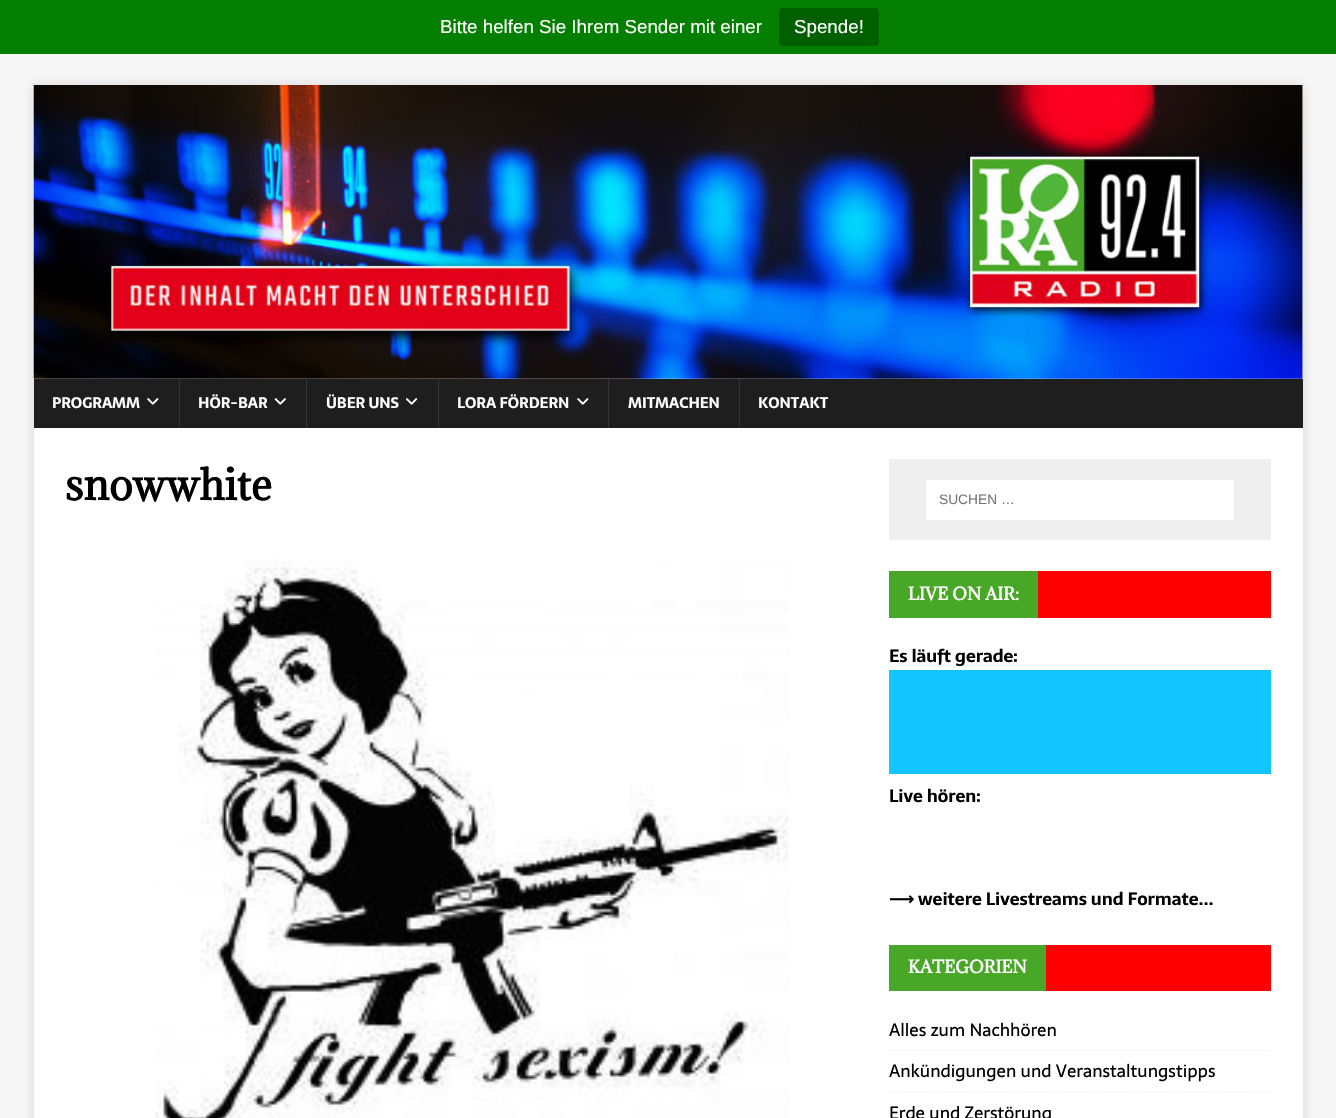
void draw(SkCanvas* canvas) {
  SkPaint paint;
  paint.setAntiAlias(true);
  auto face = [&](const char* family, int weight, float size, bool italic = false) {
    SkFontStyle style(weight, SkFontStyle::kNormal_Width,
      italic ? SkFontStyle::kItalic_Slant : SkFontStyle::kUpright_Slant);
    SkFont result(fontMgr->matchFamilyStyle(family, style), size);
    result.setSubpixel(true);
    return result;
  };
  auto paste = [&](const char* path, float x, float y, float w, float h) {
    auto image = SkImages::DeferredFromEncodedData(SkData::MakeFromFileName(path));
    canvas->drawImageRect(image, SkRect::MakeXYWH(x, y, w, h), SkSamplingOptions());
  };
  auto shape = [&](const char* data, bool evenOdd = false) {
    SkPath result = *SkParsePath::FromSVGString(data);
    if (evenOdd) result.setFillType(SkPathFillType::kEvenOdd);
    return result;
  };
  canvas->clear(0xfff7f7f7);
  paint.setColor(0xff057f01);
  canvas->drawRect(SkRect::MakeXYWH(0, 0, 1336, 54), paint);
  paint.setColor(0xff006000);
  canvas->drawRoundRect(SkRect::MakeXYWH(779, 8, 100, 38), 4, 4, paint);
  paint.setColor(0x2b323232);
  paint.setMaskFilter(SkMaskFilter::MakeBlur(kNormal_SkBlurStyle, 6));
  canvas->drawRect(SkRect::MakeXYWH(34, 85, 1269, 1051), paint);
  paint.setMaskFilter(nullptr);
  paint.setColor(0xffffffff);
  canvas->drawRect(SkRect::MakeXYWH(34, 85, 1269, 294), paint);
  paste("img/1.png", 33, 85, 1270, 294);
  paint.setColor(0xff1f1e1e);
  canvas->drawRect(SkRect::MakeXYWH(34, 379, 1269, 49), paint);
  paste("img/2.png", 147, 398, 12, 7);
  paint.setColor(0xff353535);
  canvas->drawRect(SkRect::MakeXYWH(179, 379, 1, 49), paint);
  paste("img/3.png", 274, 398, 12, 7);
  canvas->drawRect(SkRect::MakeXYWH(306, 379, 1, 49), paint);
  paste("img/4.png", 406, 398, 12, 7);
  canvas->drawRect(SkRect::MakeXYWH(438, 379, 1, 49), paint);
  paste("img/2.png", 577, 398, 12, 7);
  {
    const struct { float x, y, w, h; SkColor color; } items[] = {
      {608, 379, 1, 49, 0xff353535},
      {739, 379, 1, 49, 0xff353535},
      {34, 428, 1269, 690, 0xffffffff},
    };
    for (auto [x, y, w, h, color] : items) {
      paint.setColor(color);
      canvas->drawRect(SkRect::MakeXYWH(x, y, w, h), paint);
    }
  }
  paste("img/5.png", 155, 559, 634, 559);
  paint.setColor(0xffefefef);
  canvas->drawRect(SkRect::MakeXYWH(889, 459, 382, 81), paint);
  paint.setColor(0xffffffff);
  canvas->drawRect(SkRect::MakeXYWH(925.5f, 479.5f, 309, 41), paint);
  paint.setStroke(true);
  paint.setStrokeWidth(1);
  paint.setColor(0xffebebeb);
  canvas->drawRect(SkRect::MakeXYWH(925.5f, 479.5f, 309, 41), paint);
  paint.setStroke(false);
  {
    const struct { float x, y, w, h; SkColor color; } items[] = {
      {1038, 571, 233, 47, 0xffff0000},
      {889, 571, 149, 47, 0xff48a727},
      {889, 670, 382, 104, 0xff12c4ff},
      {1046, 945, 225, 46, 0xffff0000},
      {889, 945, 157, 46, 0xff48a727},
    };
    for (auto [x, y, w, h, color] : items) {
      paint.setColor(color);
      canvas->drawRect(SkRect::MakeXYWH(x, y, w, h), paint);
    }
  }
  paint.setStroke(true);
  paint.setStrokeWidth(1.2f);
  paint.setColor(0xffebebeb);
  paint.setPathEffect(SkDashPathEffect::Make({{1.25f, 1.25f}}, 0));
  canvas->drawPath(shape("M889 1050.5H1271"), paint);
  paint.setPathEffect(nullptr);
  paint.setPathEffect(SkDashPathEffect::Make({{1.25f, 1.25f}}, 0));
  canvas->drawPath(shape("M889 1092H1271"), paint);
  paint.setPathEffect(nullptr);
  auto f0 = face("Liberation Sans", 400, 18.75f);
  paint.setStroke(false);
  paint.setColor(0xffffffff);
  canvas->drawString("Bitte helfen Sie Ihrem Sender mit einer", 440, 33, f0, paint);
  canvas->drawString("Spende!", 794, 33, f0, paint);
  auto f1 = face("Sarala", 700, 15);
  {
    const struct { const char* s; float x, y; } items[] = {
      {"PROGRAMM", 52, 408},
      {"HÖR-BAR", 198, 408},
      {"ÜBER UNS", 326, 408},
      {"LORA FÖRDERN", 457, 408},
      {"MITMACHEN", 628, 408},
      {"KONTAKT", 758, 408},
    };
    for (auto [s, x, y] : items) {
      canvas->drawString(s, x, y, f1, paint);
    }
  }
  auto f2 = face("Adamina", 700, 40);
  paint.setColor(0xff000000);
  canvas->drawString("snowwhite", 65, 500, f2, paint);
  auto f3 = face("Liberation Sans", 400, 13.75f);
  paint.setColor(0xff757575);
  canvas->drawString("SUCHEN …", 939, 504, f3, paint);
  auto f4 = face("Adamina", 700, 16.25f);
  paint.setColor(0xffffffff);
  canvas->drawString("LIVE ON AIR:", 908, 600, f4, paint);
  auto f5 = face("Sarala", 700, 17.5f);
  paint.setColor(0xff000000);
  canvas->drawString("Es läuft gerade:", 889, 662, f5, paint);
  canvas->drawString("Live hören:", 889, 802, f5, paint);
  auto f6 = face("DejaVu Sans", 700, 17.5f);
  canvas->drawString("⟶", 889, 905, f6, paint);
  canvas->drawString("weitere Livestreams und Formate...", 918, 905, f5, paint);
  paint.setColor(0xffffffff);
  canvas->drawString("KATEGORIEN", 908, 973, f4, paint);
  auto f7 = face("Sarala", 400, 17.5f);
  paint.setColor(0xff000000);
  {
    const struct { const char* s; float x, y; } items[] = {
      {"Alles zum Nachhören", 889, 1036},
      {"Ankündigungen und Veranstaltungstipps", 889, 1077},
      {"Erde und Zerstörung", 889, 1119},
    };
    for (auto [s, x, y] : items) {
      canvas->drawString(s, x, y, f7, paint);
    }
  }
}
